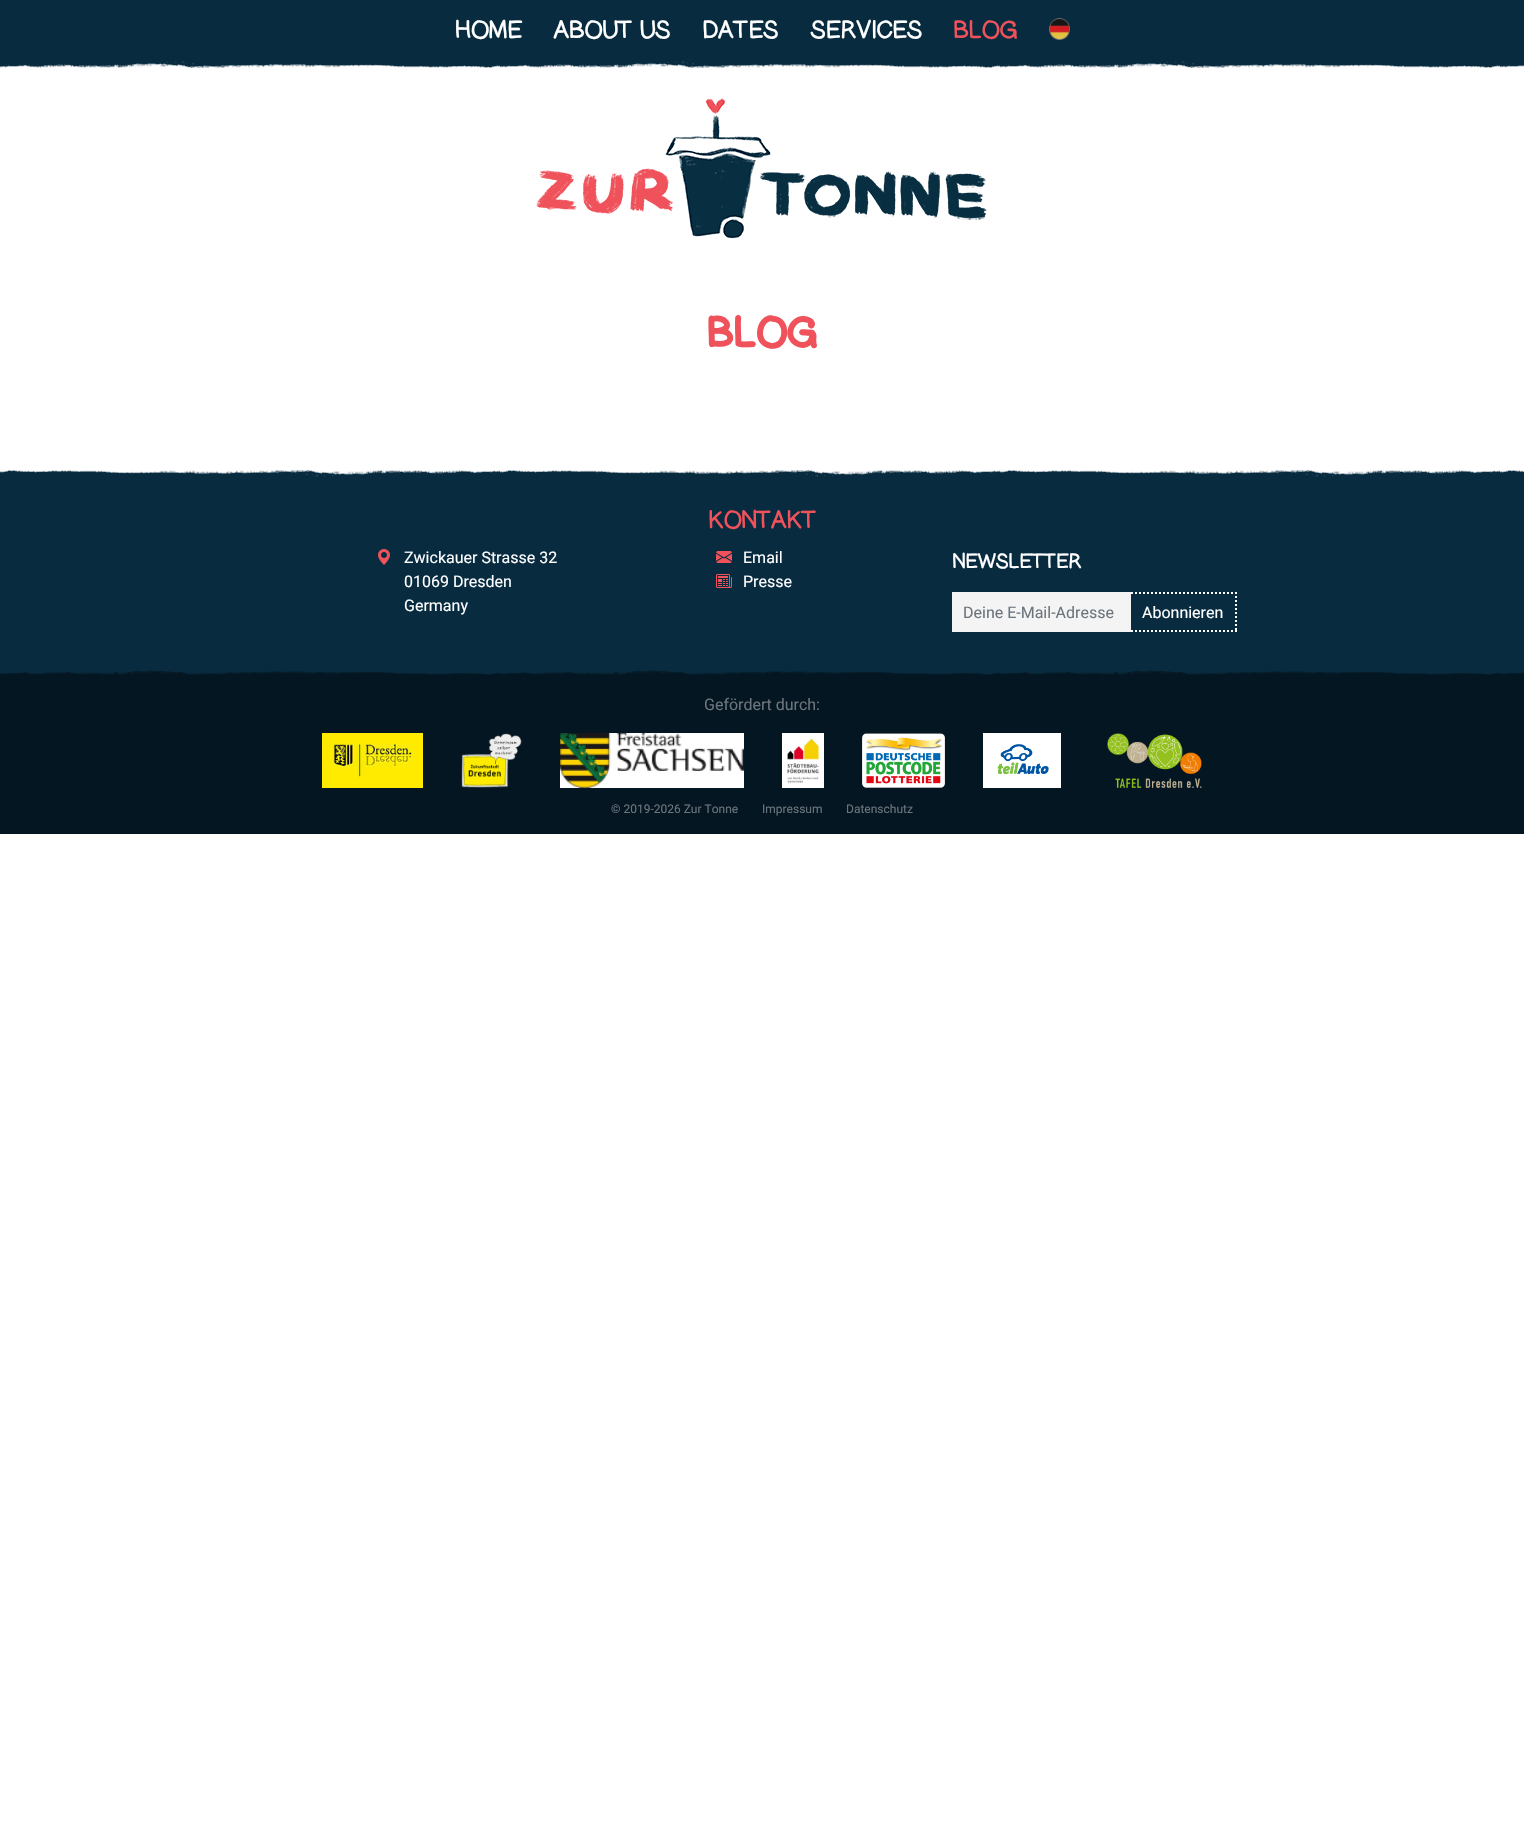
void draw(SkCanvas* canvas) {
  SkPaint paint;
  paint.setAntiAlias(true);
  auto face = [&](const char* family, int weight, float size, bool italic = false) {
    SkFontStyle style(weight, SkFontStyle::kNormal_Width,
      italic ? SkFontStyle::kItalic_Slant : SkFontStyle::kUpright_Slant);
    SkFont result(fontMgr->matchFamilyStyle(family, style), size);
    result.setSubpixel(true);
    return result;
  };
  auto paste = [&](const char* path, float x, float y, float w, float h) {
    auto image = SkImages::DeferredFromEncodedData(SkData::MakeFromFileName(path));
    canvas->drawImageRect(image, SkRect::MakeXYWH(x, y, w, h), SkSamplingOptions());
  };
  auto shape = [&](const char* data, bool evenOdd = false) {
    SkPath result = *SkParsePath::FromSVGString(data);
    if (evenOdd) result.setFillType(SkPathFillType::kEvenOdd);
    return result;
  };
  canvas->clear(0xffffffff);
  paint.setColor(0xff082b3f);
  canvas->drawRect(SkRect::MakeXYWH(0, 0, 1524, 60), paint);
  paste("img/1.png", 1049, 18, 21, 22);
  paste("img/2.png", 0, 60, 1524, 8);
  paste("img/3.png", 536, 98, 451, 141);
  paste("img/4.png", 0, 470, 1524, 8);
  canvas->drawRect(SkRect::MakeXYWH(0, 478, 1524, 189), paint);
  paste("img/5.png", 378, 549, 12, 16);
  paste("img/6.png", 716, 551, 16, 12);
  paste("img/7.png", 716, 574, 16, 14);
  paint.setColor(0xfff4f4f4);
  canvas->drawRect(SkRect::MakeXYWH(952, 592, 179, 40), paint);
  paint.setStroke(true);
  paint.setStrokeWidth(2);
  paint.setColor(0xffffffff);
  paint.setPathEffect(SkDashPathEffect::Make({{2, 2}}, 0));
  canvas->drawPath(shape("M1131 593H1237"), paint);
  paint.setPathEffect(nullptr);
  paint.setPathEffect(SkDashPathEffect::Make({{2, 2}}, 0));
  canvas->drawPath(shape("M1236 592V632"), paint);
  paint.setPathEffect(nullptr);
  paint.setPathEffect(SkDashPathEffect::Make({{2, 2}}, 0));
  canvas->drawPath(shape("M1131 631H1237"), paint);
  paint.setPathEffect(nullptr);
  paint.setStroke(false);
  paint.setColor(0xff041621);
  canvas->drawRect(SkRect::MakeXYWH(0, 668, 1524, 166), paint);
  paste("img/8.png", 0, 667, 1524, 8);
  paste("img/9.png", 322, 733, 101, 55);
  paste("img/10.png", 461, 733, 61, 55);
  paste("img/11.png", 560, 733, 184, 55);
  paste("img/12.png", 782, 733, 42, 55);
  paste("img/13.png", 862, 733, 83, 55);
  paste("img/14.png", 983, 733, 78, 55);
  paste("img/15.png", 1107, 733, 95, 55);
  auto f0 = face("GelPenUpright", 500, 24);
  paint.setColor(0xffffffff);
  {
    const struct { const char* s; float x, y; } items[] = {
      {"HOME", 454, 38},
      {"ABOUT US", 553, 38},
      {"DATES", 702, 38},
      {"SERVICES", 810, 38},
    };
    for (auto [s, x, y] : items) {
      canvas->drawString(s, x, y, f0, paint);
    }
  }
  paint.setColor(0xffef525b);
  canvas->drawString("BLOG", 953, 38, f0, paint);
  auto f1 = face("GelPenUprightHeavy", 900, 40);
  canvas->drawString("BLOG", 707, 346, f1, paint);
  canvas->drawString("KONTAKT", 708, 528, f0, paint);
  auto f2 = face("Roboto", 400, 16);
  paint.setColor(0xffffffff);
  {
    const struct { const char* s; float x, y; } items[] = {
      {"Zwickauer Strasse 32", 404, 563},
      {"01069 Dresden", 404, 587},
      {"Germany", 404, 611},
      {"Email", 743, 563},
      {"Presse", 743, 587},
    };
    for (auto [s, x, y] : items) {
      canvas->drawString(s, x, y, f2, paint);
    }
  }
  auto f3 = face("GelPenUpright", 500, 20);
  canvas->drawString("NEWSLETTER", 952, 568, f3, paint);
  paint.setColor(0xff6c757d);
  canvas->drawString("Deine E-Mail-Adresse", 963, 618, f2, paint);
  paint.setColor(0xffffffff);
  canvas->drawString("Abonnieren", 1142, 618, f2, paint);
  paint.setColor(0xff6c757d);
  canvas->drawString("Gefördert durch:", 704, 710, f2, paint);
  auto f4 = face("Roboto", 400, 12);
  {
    const struct { const char* s; float x, y; } items[] = {
      {"© 2019-2026 Zur Tonne", 611, 813},
      {"Impressum", 762, 813},
      {"Datenschutz", 846, 813},
    };
    for (auto [s, x, y] : items) {
      canvas->drawString(s, x, y, f4, paint);
    }
  }
}
